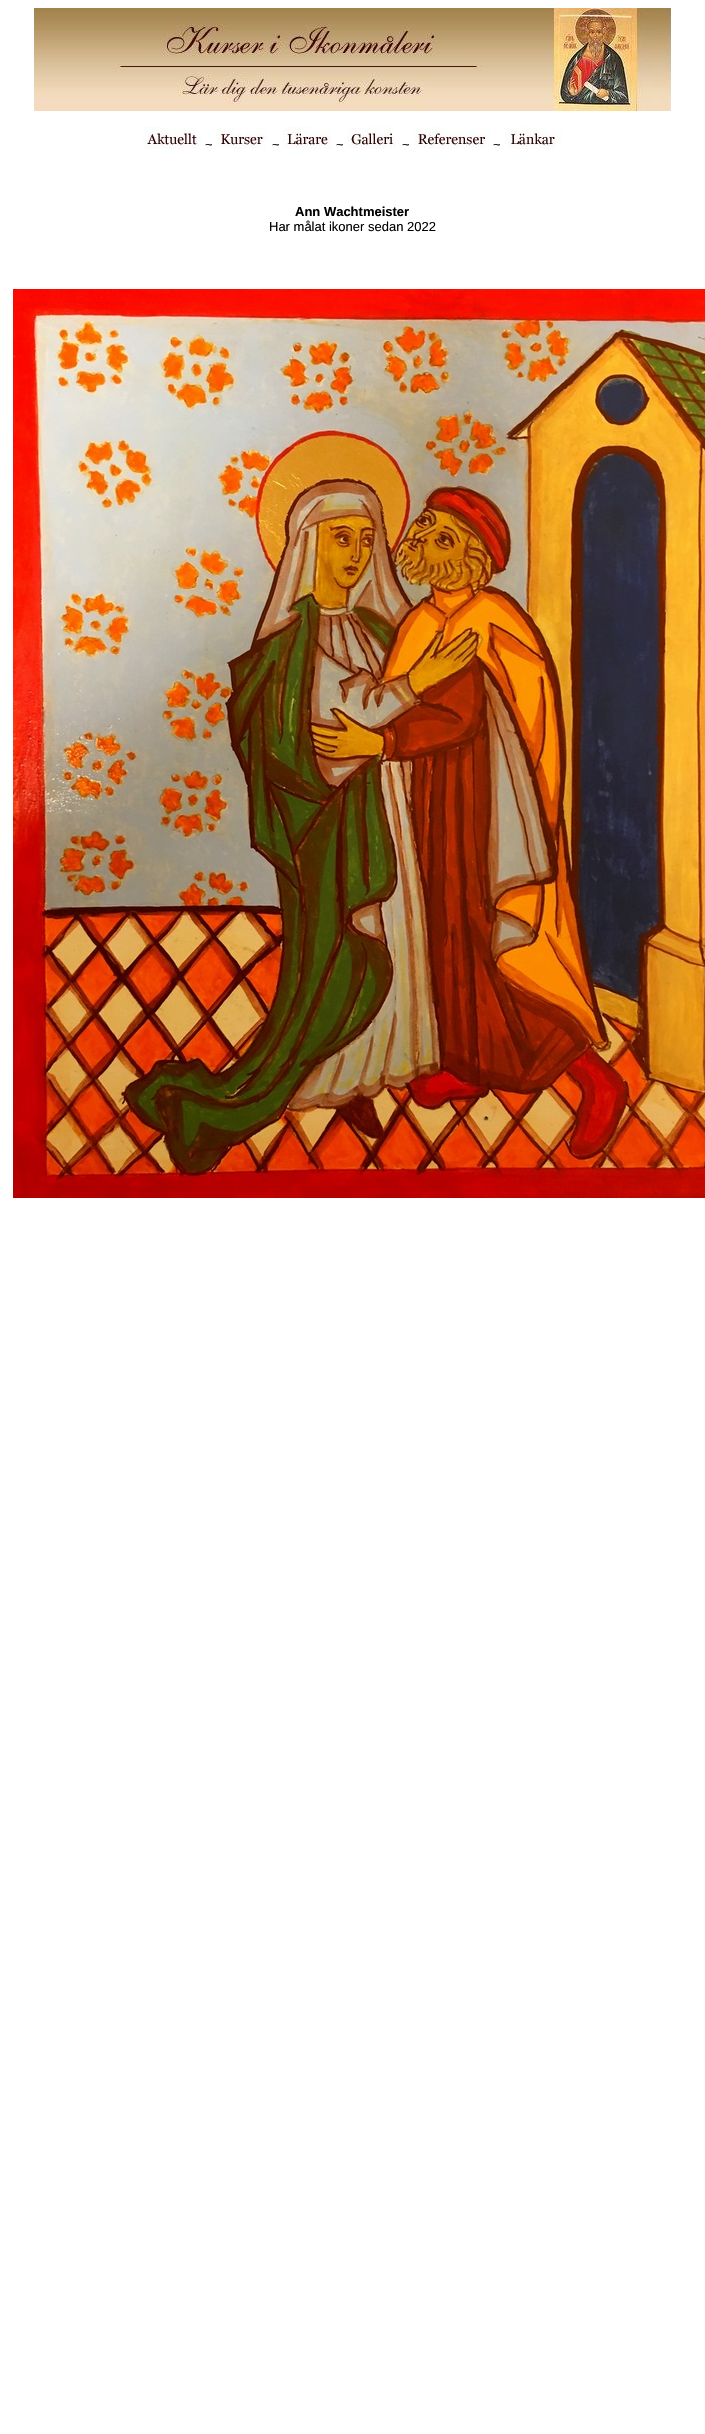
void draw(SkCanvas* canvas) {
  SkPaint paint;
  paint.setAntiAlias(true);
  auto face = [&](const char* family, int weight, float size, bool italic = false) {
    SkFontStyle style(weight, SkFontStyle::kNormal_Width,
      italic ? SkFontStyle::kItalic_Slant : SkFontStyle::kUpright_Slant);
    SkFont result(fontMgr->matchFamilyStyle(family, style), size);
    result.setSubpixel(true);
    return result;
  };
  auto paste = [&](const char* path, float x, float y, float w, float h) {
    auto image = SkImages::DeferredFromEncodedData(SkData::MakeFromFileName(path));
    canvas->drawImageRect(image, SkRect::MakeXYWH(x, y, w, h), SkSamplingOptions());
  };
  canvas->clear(0xffffffff);
  paste("img/1.png", 34, 8, 637, 103);
  paste("img/2.png", 143, 127, 58, 22);
  paste("img/3.png", 216, 127, 52, 22);
  paste("img/4.png", 283, 127, 49, 22);
  paste("img/5.png", 347, 127, 48, 22);
  paste("img/6.png", 413, 127, 77, 22);
  paste("img/7.png", 505, 127, 57, 22);
  paste("img/8.png", 13, 289, 692, 909);
  auto f0 = face("Liberation Sans", 400, 13);
  paint.setColor(0xff000000);
  {
    const struct { const char* s; float x, y; } items[] = {
      {"~", 205, 149},
      {"~", 272, 149},
      {"~", 336, 149},
      {"~", 402, 149},
      {"~", 493, 149},
    };
    for (auto [s, x, y] : items) {
      canvas->drawString(s, x, y, f0, paint);
    }
  }
  auto f1 = face("Liberation Sans", 700, 13);
  canvas->drawString("Ann Wachtmeister", 295, 216, f1, paint);
  canvas->drawString("Har målat ikoner sedan 2022", 269, 231, f0, paint);
}
